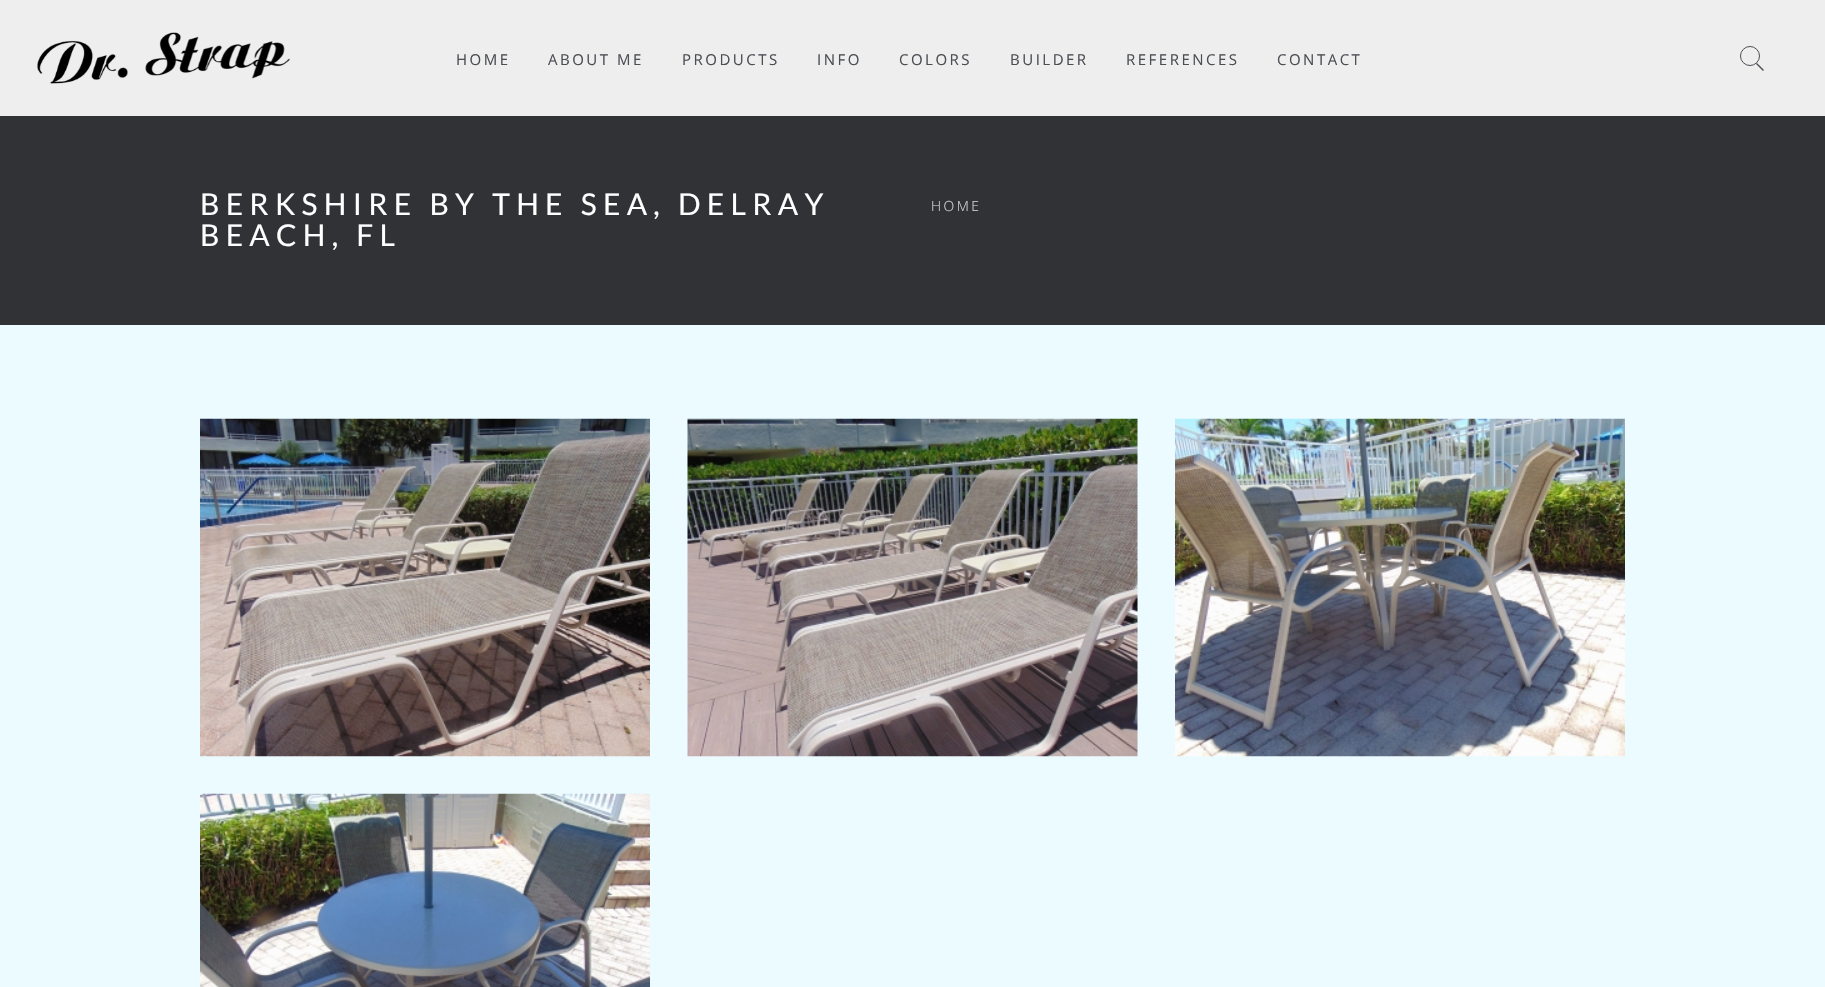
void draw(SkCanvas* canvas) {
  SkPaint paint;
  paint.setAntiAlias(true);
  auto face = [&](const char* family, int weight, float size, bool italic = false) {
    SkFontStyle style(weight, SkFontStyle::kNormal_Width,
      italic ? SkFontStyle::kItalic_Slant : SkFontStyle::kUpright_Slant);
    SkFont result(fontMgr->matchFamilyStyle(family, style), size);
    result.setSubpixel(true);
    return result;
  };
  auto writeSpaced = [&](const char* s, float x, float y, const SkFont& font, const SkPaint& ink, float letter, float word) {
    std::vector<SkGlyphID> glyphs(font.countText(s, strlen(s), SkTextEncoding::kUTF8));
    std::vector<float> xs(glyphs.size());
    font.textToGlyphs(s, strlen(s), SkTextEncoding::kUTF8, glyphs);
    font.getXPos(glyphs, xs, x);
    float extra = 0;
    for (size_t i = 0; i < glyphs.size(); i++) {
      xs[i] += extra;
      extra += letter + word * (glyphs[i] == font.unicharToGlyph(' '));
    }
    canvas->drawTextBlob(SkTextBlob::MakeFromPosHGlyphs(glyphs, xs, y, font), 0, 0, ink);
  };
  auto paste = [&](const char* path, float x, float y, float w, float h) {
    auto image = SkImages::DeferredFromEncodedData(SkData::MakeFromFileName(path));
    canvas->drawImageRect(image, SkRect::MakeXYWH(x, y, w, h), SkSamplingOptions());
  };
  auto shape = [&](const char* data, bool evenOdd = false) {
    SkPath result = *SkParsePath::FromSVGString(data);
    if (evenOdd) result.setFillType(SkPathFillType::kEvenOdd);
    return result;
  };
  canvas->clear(0xff303236);
  paint.setColor(0xffeeeeee);
  canvas->drawRect(SkRect::MakeXYWH(0, 0, 1825, 116), paint);
  paste("img/1.png", 37, 32, 254, 52);
  paint.setStroke(true);
  paint.setStrokeWidth(1);
  paint.setColor(0xff4b4e53);
  canvas->drawCircle(1750, 56, 9.5f, paint);
  paint.setStroke(false);
  canvas->drawPath(shape("M1757 63L1764 70L1763 71L1756 64Z"), paint);
  paint.setColor(0xffebfbff);
  canvas->drawRect(SkRect::MakeXYWH(0, 325, 1825, 662), paint);
  paste("img/2.png", 200, 418, 450, 339);
  paste("img/3.png", 687, 418, 451, 339);
  paste("img/4.png", 1175, 418, 450, 339);
  paste("img/5.png", 200, 793, 450, 194);
  auto f0 = face("Open Sans", 400, 15);
  paint.setColor(0xff4b4e53);
  {
    const struct { const char* s; float x, y; } items[] = {
      {"HOME", 456, 65},
      {"ABOUT ME", 548, 65},
      {"PRODUCTS", 682, 65},
      {"INFO", 817, 65},
      {"COLORS", 899, 65},
      {"BUILDER", 1010, 65},
      {"REFERENCES", 1126, 65},
      {"CONTACT", 1277, 65},
    };
    for (auto [s, x, y] : items) {
      writeSpaced(s, x, y, f0, paint, 2.5f, 0);
    }
  }
  auto f1 = face("Lato", 400, 30);
  paint.setColor(0xffffffff);
  writeSpaced("BERKSHIRE BY THE SEA, DELRAY", 200, 215, f1, paint, 6.25f, 0);
  writeSpaced("BEACH, FL", 200, 246, f1, paint, 6.25f, 0);
  auto f2 = face("Open Sans", 300, 14);
  paint.setColor(0xffd6d6d7);
  writeSpaced("HOME", 931, 211, f2, paint, 2.5f, 0);
}
